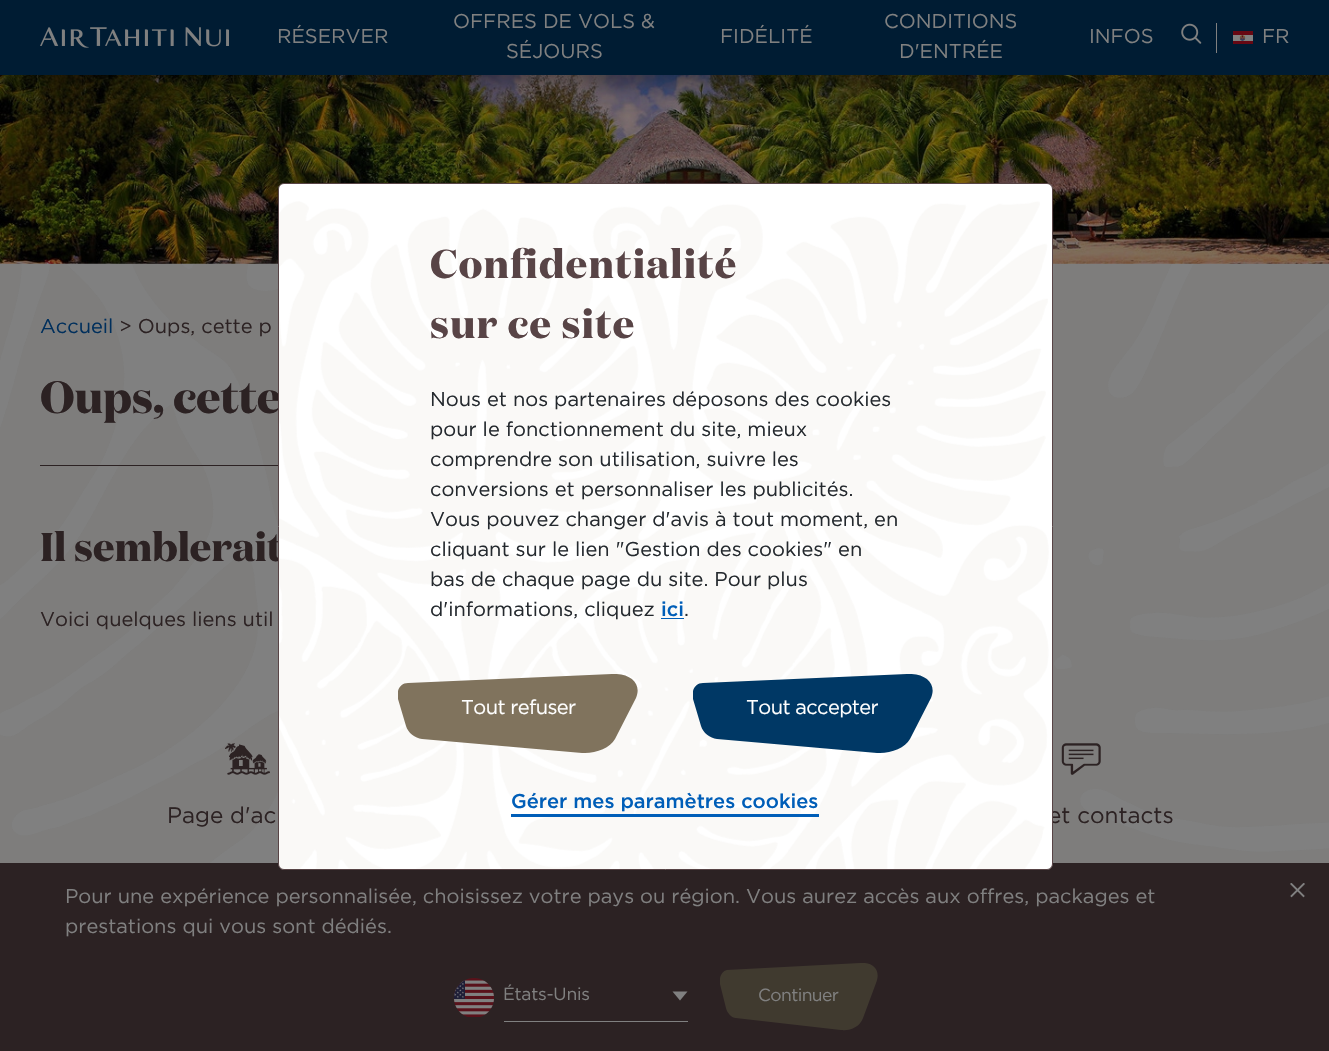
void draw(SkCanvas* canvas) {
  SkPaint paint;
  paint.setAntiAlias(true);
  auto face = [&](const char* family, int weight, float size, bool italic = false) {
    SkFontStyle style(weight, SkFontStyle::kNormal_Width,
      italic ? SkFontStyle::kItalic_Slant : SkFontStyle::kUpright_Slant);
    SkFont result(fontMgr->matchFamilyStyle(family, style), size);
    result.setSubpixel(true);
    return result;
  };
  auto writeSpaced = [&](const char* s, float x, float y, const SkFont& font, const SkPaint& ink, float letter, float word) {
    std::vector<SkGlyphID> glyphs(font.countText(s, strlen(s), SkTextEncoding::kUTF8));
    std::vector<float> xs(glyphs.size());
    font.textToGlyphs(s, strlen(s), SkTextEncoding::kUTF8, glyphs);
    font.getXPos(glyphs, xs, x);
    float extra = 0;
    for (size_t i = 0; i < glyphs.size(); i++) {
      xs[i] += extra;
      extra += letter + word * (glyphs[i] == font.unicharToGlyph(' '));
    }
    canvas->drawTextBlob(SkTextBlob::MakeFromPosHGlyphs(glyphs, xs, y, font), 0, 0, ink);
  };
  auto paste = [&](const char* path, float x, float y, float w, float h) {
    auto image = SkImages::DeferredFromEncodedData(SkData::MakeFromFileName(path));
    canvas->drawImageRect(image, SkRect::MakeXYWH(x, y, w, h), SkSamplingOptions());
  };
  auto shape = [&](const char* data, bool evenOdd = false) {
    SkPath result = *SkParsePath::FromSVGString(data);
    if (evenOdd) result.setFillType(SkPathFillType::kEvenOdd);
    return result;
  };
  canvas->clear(0xff808080);
  paste("img/10.png", 0, 263, 1329, 600);
  paste("img/4.png", 0, 75, 1329, 189);
  paint.setColor(0x59000000);
  paint.setMaskFilter(SkMaskFilter::MakeBlur(kNormal_SkBlurStyle, 10));
  canvas->drawRect(SkRect::MakeXYWH(0, 10, 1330, 75), paint);
  paint.setMaskFilter(nullptr);
  paint.setColor(0xff001c33);
  canvas->drawRect(SkRect::MakeXYWH(0, 0, 1329, 75), paint);
  paste("img/1.png", 40, 27, 189, 21);
  paste("img/2.png", 1181, 23, 21, 21);
  paint.setColor(0xff808080);
  canvas->drawRect(SkRect::MakeXYWH(1216, 23, 1, 30), paint);
  paste("img/3.png", 1233, 31, 20, 13);
  paint.setColor(0xff2c2223);
  canvas->drawRect(SkRect::MakeXYWH(40, 465, 238, 1), paint);
  paste("img/5.png", 225, 743, 45, 32);
  paste("img/6.png", 1061, 743, 40, 32);
  canvas->drawRect(SkRect::MakeXYWH(0, 863, 1329, 188), paint);
  paste("img/7.png", 1290, 883, 15, 15);
  paste("img/8.png", 454, 978, 40, 39);
  paint.setColor(0xff808080);
  canvas->drawRect(SkRect::MakeXYWH(504, 1021, 184, 1), paint);
  canvas->drawPath(shape("M680 1000.5L672.5 991.5H687.5Z"), paint);
  canvas->save();
  canvas->clipRect(SkRect::MakeXYWH(720, 963, 158, 68));
  paint.setColor(0xff403a2f);
  canvas->drawPath(shape("M727 970L861 963C874 962 881 971 876 983L863 1018C860 1027 850 1031 841 1030L736 1018C732 1018 727 1013 726 1008L720 984C719 977 722 971 727 970Z", true), paint);
  canvas->restore();
  auto f0 = face("Gotham", 400, 20);
  paint.setColor(0xff808080);
  {
    const struct { const char* s; float x, y; } items[] = {
      {"RÉSERVER", 277, 43},
      {"OFFRES DE VOLS &", 453, 28},
      {"SÉJOURS", 506, 58},
      {"FIDÉLITÉ", 720, 43},
      {"CONDITIONS", 884, 28},
      {"D'ENTRÉE", 899, 58},
      {"INFOS", 1089, 43},
      {"FR", 1262, 43},
    };
    for (auto [s, x, y] : items) {
      canvas->drawString(s, x, y, f0, paint);
    }
  }
  paint.setColor(0xff002f5c);
  canvas->drawString("Accueil", 40, 333, f0, paint);
  paint.setColor(0xff2c2223);
  canvas->drawString("> Oups, cette p", 119, 333, f0, paint);
  auto f1 = face("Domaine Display", 700, 45);
  canvas->drawString("Oups, cette", 40, 413, f1, paint);
  auto f2 = face("Domaine Display", 700, 40);
  canvas->drawString("Il semblerait", 40, 561, f2, paint);
  canvas->drawString("Voici quelques liens util", 40, 626, f0, paint);
  auto f3 = face("Gotham", 400, 22.5f);
  canvas->drawString("Page d'ac", 167, 823, f3, paint);
  canvas->drawString("et contacts", 1048, 823, f3, paint);
  paint.setColor(0xff808080);
  canvas->drawString("Pour une expérience personnalisée, choisissez votre pays ou région. Vous aurez accès aux offres, packages et", 65, 903, f0, paint);
  canvas->drawString("prestations qui vous sont dédiés.", 65, 933, f0, paint);
  auto f4 = face("Gotham", 400, 17.5f);
  writeSpaced("États-Unis", 503, 1000, f4, paint, -0.25f, 0);
  writeSpaced("Continuer", 758, 1001, f4, paint, -0.6f, 0);
  paint.setColor(0xffffffff);
  canvas->drawRoundRect(SkRect::MakeXYWH(278.5f, 183.5f, 774, 686), 5.5f, 5.5f, paint);
  paint.setStroke(true);
  paint.setStrokeWidth(1);
  paint.setColor(0xff584446);
  canvas->drawRoundRect(SkRect::MakeXYWH(278.5f, 183.5f, 774, 686), 5.5f, 5.5f, paint);
  paint.setStroke(false);
  paint.setColor(0x24ffffff);
  canvas->drawRoundRect(SkRect::MakeXYWH(279, 184, 772, 685), 5, 5, paint);
  paste("img/9.png", 279, 201, 770, 668);
  paint.setColor(0xff584446);
  writeSpaced("Confidentialité", 430, 278, f2, paint, 1.25f, 0);
  writeSpaced("sur ce site", 430, 338, f2, paint, 1.25f, 0);
  paint.setColor(0xff24292e);
  {
    const struct { const char* s; float x, y; } items[] = {
      {"Nous et nos partenaires déposons des cookies", 430, 406},
      {"pour le fonctionnement du site, mieux", 430, 436},
      {"comprendre son utilisation, suivre les", 430, 466},
      {"conversions et personnaliser les publicités.", 430, 496},
      {"Vous pouvez changer d'avis à tout moment, en", 430, 526},
      {"cliquant sur le lien \"Gestion des cookies\" en", 430, 556},
      {"bas de chaque page du site. Pour plus", 430, 586},
      {"d'informations, cliquez", 430, 616},
    };
    for (auto [s, x, y] : items) {
      canvas->drawString(s, x, y, f0, paint);
    }
  }
  auto f5 = face("Gotham", 500, 20);
  paint.setColor(0xff005eb8);
  canvas->drawString("ici", 661, 616, f5, paint);
  canvas->drawRect(SkRect::MakeXYWH(661, 618, 23, 1), paint);
  paint.setColor(0xff24292e);
  canvas->drawString(".", 684, 616, f0, paint);
  canvas->save();
  canvas->clipRect(SkRect::MakeXYWH(398, 674, 240, 80));
  paint.setColor(0xff80735d);
  canvas->drawPath(shape("M408 683L612 674C631 673 642 684 636 698L615 739C610 748 595 754 582 753L422 739C415 738 408 733 406 726L398 699C396 691 400 683 408 683Z", true), paint);
  canvas->restore();
  paint.setColor(0xffffffff);
  writeSpaced("Tout refuser", 461, 714, f0, paint, -0.6f, 0);
  canvas->save();
  canvas->clipRect(SkRect::MakeXYWH(693, 674, 240, 80));
  paint.setColor(0xff003865);
  canvas->drawPath(shape("M703 683L907 674C926 673 937 684 931 698L910 739C905 748 890 754 877 753L717 739C710 738 703 733 701 726L693 699C691 691 695 683 703 683Z", true), paint);
  canvas->restore();
  paint.setColor(0xffffffff);
  writeSpaced("Tout accepter", 746, 714, f0, paint, -0.6f, 0);
  paint.setColor(0xff005eb8);
  canvas->drawRect(SkRect::MakeXYWH(511, 814, 308, 3), paint);
  canvas->drawString("Gérer mes paramètres cookies", 511, 808, f5, paint);
}
